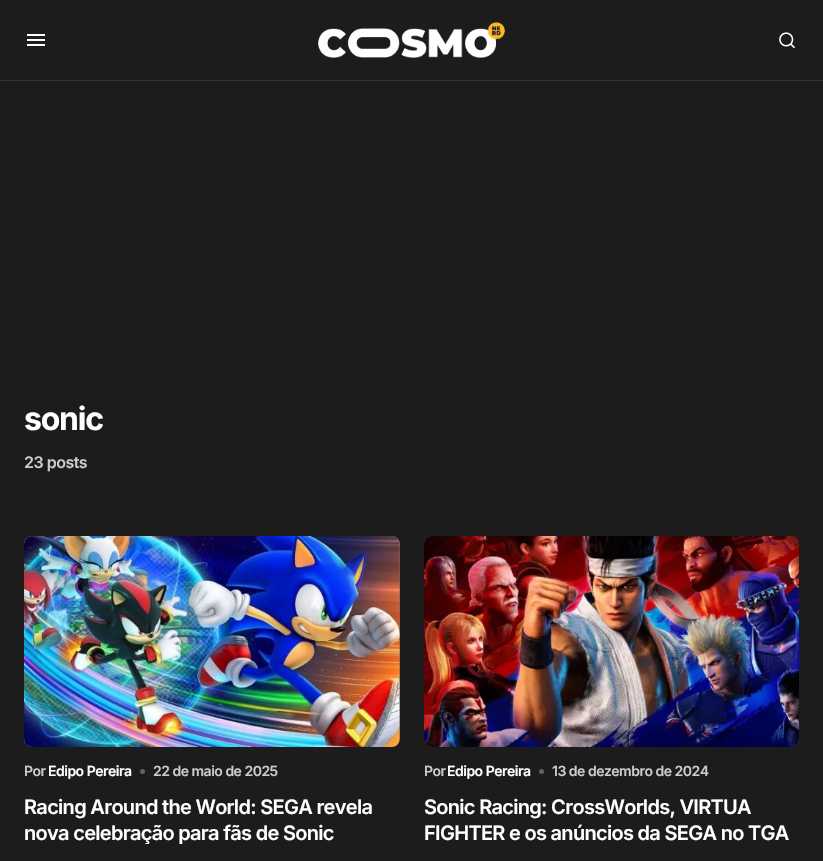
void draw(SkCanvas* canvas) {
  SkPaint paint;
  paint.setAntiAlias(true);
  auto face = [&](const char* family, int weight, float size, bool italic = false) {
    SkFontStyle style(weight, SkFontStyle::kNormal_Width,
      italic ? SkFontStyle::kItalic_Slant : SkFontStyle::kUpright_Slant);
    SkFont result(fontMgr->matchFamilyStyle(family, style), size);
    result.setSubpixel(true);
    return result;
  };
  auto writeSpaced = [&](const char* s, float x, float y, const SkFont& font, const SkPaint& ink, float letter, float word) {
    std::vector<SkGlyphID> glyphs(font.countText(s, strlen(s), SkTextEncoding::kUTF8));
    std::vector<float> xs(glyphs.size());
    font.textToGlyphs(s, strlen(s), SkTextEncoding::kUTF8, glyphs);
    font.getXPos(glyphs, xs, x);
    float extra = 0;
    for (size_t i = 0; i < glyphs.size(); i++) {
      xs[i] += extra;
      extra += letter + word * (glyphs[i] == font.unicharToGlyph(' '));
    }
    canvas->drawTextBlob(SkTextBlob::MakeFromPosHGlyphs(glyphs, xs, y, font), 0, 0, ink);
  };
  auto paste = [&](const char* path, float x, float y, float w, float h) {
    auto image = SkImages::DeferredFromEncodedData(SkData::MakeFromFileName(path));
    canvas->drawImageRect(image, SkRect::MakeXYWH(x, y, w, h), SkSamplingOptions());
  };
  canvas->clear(0xff1c1c1c);
  paste("img/1.png", 27, 34, 18, 12);
  paste("img/2.png", 318, 22, 187, 36);
  paste("img/3.png", 779, 32, 16, 17);
  paint.setColor(0xff343434);
  canvas->drawRect(SkRect::MakeXYWH(0, 80, 823, 1), paint);
  paint.setColor(0xff616883);
  canvas->drawRoundRect(SkRect::MakeXYWH(24, 536, 376, 211), 8, 8, paint);
  paste("img/4.png", 24, 536, 376, 211);
  paint.setColor(0xff616161);
  canvas->drawCircle(142.5f, 771.5f, 2.5f, paint);
  paint.setColor(0xff492639);
  canvas->drawRoundRect(SkRect::MakeXYWH(424, 536, 375, 211), 8, 8, paint);
  paste("img/5.png", 424, 536, 375, 211);
  paint.setColor(0xff616161);
  canvas->drawCircle(541.5f, 771.5f, 2.5f, paint);
  auto f0 = face("Inter", 700, 32);
  paint.setColor(0xffffffff);
  writeSpaced("sonic", 24, 430, f0, paint, -1.25f, 0);
  auto f1 = face("Inter", 600, 16);
  paint.setColor(0xffcdcbca);
  writeSpaced("23 posts", 24, 468, f1, paint, -0.5f, 0);
  auto f2 = face("Inter", 600, 14);
  writeSpaced("Por", 24, 776, f2, paint, -0.5f, 0);
  paint.setColor(0xffffffff);
  writeSpaced("Edipo Pereira", 48, 776, f2, paint, -0.5f, 0);
  paint.setColor(0xffcdcbca);
  writeSpaced("22 de maio de 2025", 153, 776, f2, paint, -0.5f, 0);
  auto f3 = face("Inter", 600, 20);
  paint.setColor(0xffffffff);
  writeSpaced("Racing Around the World: SEGA revela", 24, 814, f3, paint, -0.7f, 0);
  writeSpaced("nova celebração para fãs de Sonic", 24, 840, f3, paint, -0.7f, 0);
  paint.setColor(0xffcdcbca);
  writeSpaced("Por", 424, 776, f2, paint, -0.5f, 0);
  paint.setColor(0xffffffff);
  writeSpaced("Edipo Pereira", 447, 776, f2, paint, -0.5f, 0);
  paint.setColor(0xffcdcbca);
  writeSpaced("13 de dezembro de 2024", 552, 776, f2, paint, -0.5f, 0);
  paint.setColor(0xffffffff);
  writeSpaced("Sonic Racing: CrossWorlds, VIRTUA", 424, 814, f3, paint, -0.7f, 0);
  writeSpaced("FIGHTER e os anúncios da SEGA no TGA", 424, 840, f3, paint, -0.7f, 0);
}
